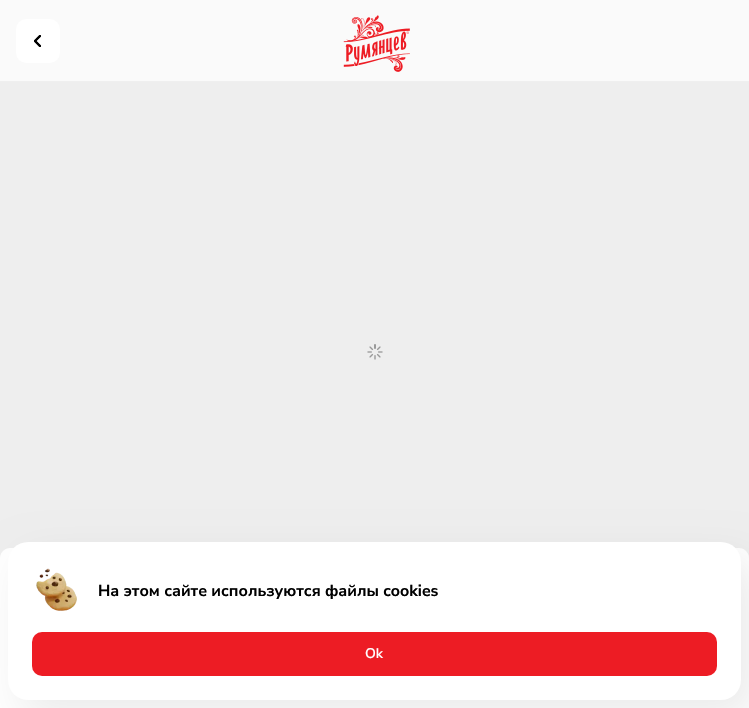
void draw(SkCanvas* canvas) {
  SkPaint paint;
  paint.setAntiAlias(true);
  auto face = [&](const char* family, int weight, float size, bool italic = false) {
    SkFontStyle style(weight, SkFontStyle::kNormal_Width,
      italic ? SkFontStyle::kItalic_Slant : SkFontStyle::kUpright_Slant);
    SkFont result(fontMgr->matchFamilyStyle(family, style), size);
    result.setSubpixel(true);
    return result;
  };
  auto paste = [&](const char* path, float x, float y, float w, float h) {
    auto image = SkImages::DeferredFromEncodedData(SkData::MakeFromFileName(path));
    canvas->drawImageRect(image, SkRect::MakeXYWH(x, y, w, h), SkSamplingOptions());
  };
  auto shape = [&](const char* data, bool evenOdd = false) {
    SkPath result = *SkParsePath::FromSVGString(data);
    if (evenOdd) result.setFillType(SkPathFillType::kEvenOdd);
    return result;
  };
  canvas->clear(0xfffafafa);
  paint.setColor(0xffefefef);
  canvas->drawRect(SkRect::MakeXYWH(0, 81, 749, 1), paint);
  paint.setColor(0xffffffff);
  canvas->drawRoundRect(SkRect::MakeXYWH(16, 19, 44, 44), 10, 10, paint);
  paste("img/1.png", 34, 35, 7, 12);
  paste("img/2.png", 343, 15, 67, 57);
  paint.setColor(0xffeeeeee);
  canvas->drawRect(SkRect::MakeXYWH(0, 82, 749, 476), paint);
  paste("img/3.png", 367, 344, 16, 16);
  paint.setColor(0xffffffff);
  canvas->drawPath(shape("M10 548H739C744.5 548 749 552.5 749 558V708H0V558C0 552.5 4.5 548 10 548Z"), paint);
  paint.setColor(0x14000000);
  paint.setMaskFilter(SkMaskFilter::MakeBlur(kNormal_SkBlurStyle, 21));
  canvas->drawRoundRect(SkRect::MakeXYWH(21, 559, 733, 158), 20, 20, paint);
  paint.setMaskFilter(nullptr);
  paint.setColor(0xffffffff);
  canvas->drawRoundRect(SkRect::MakeXYWH(8, 542, 733, 158), 20, 20, paint);
  paste("img/4.png", 36, 568, 41, 43);
  paint.setColor(0xffed1c24);
  canvas->drawRoundRect(SkRect::MakeXYWH(32, 632, 685, 44), 10, 10, paint);
  auto f0 = face("Nunito Sans", 700, 16);
  paint.setColor(0xff000000);
  canvas->drawString("На этом сайте используются файлы cookies", 98, 596, f0, paint);
  auto f1 = face("Nunito Sans", 600, 14);
  paint.setColor(0xffffffff);
  canvas->drawString("Оk", 365, 658, f1, paint);
}
